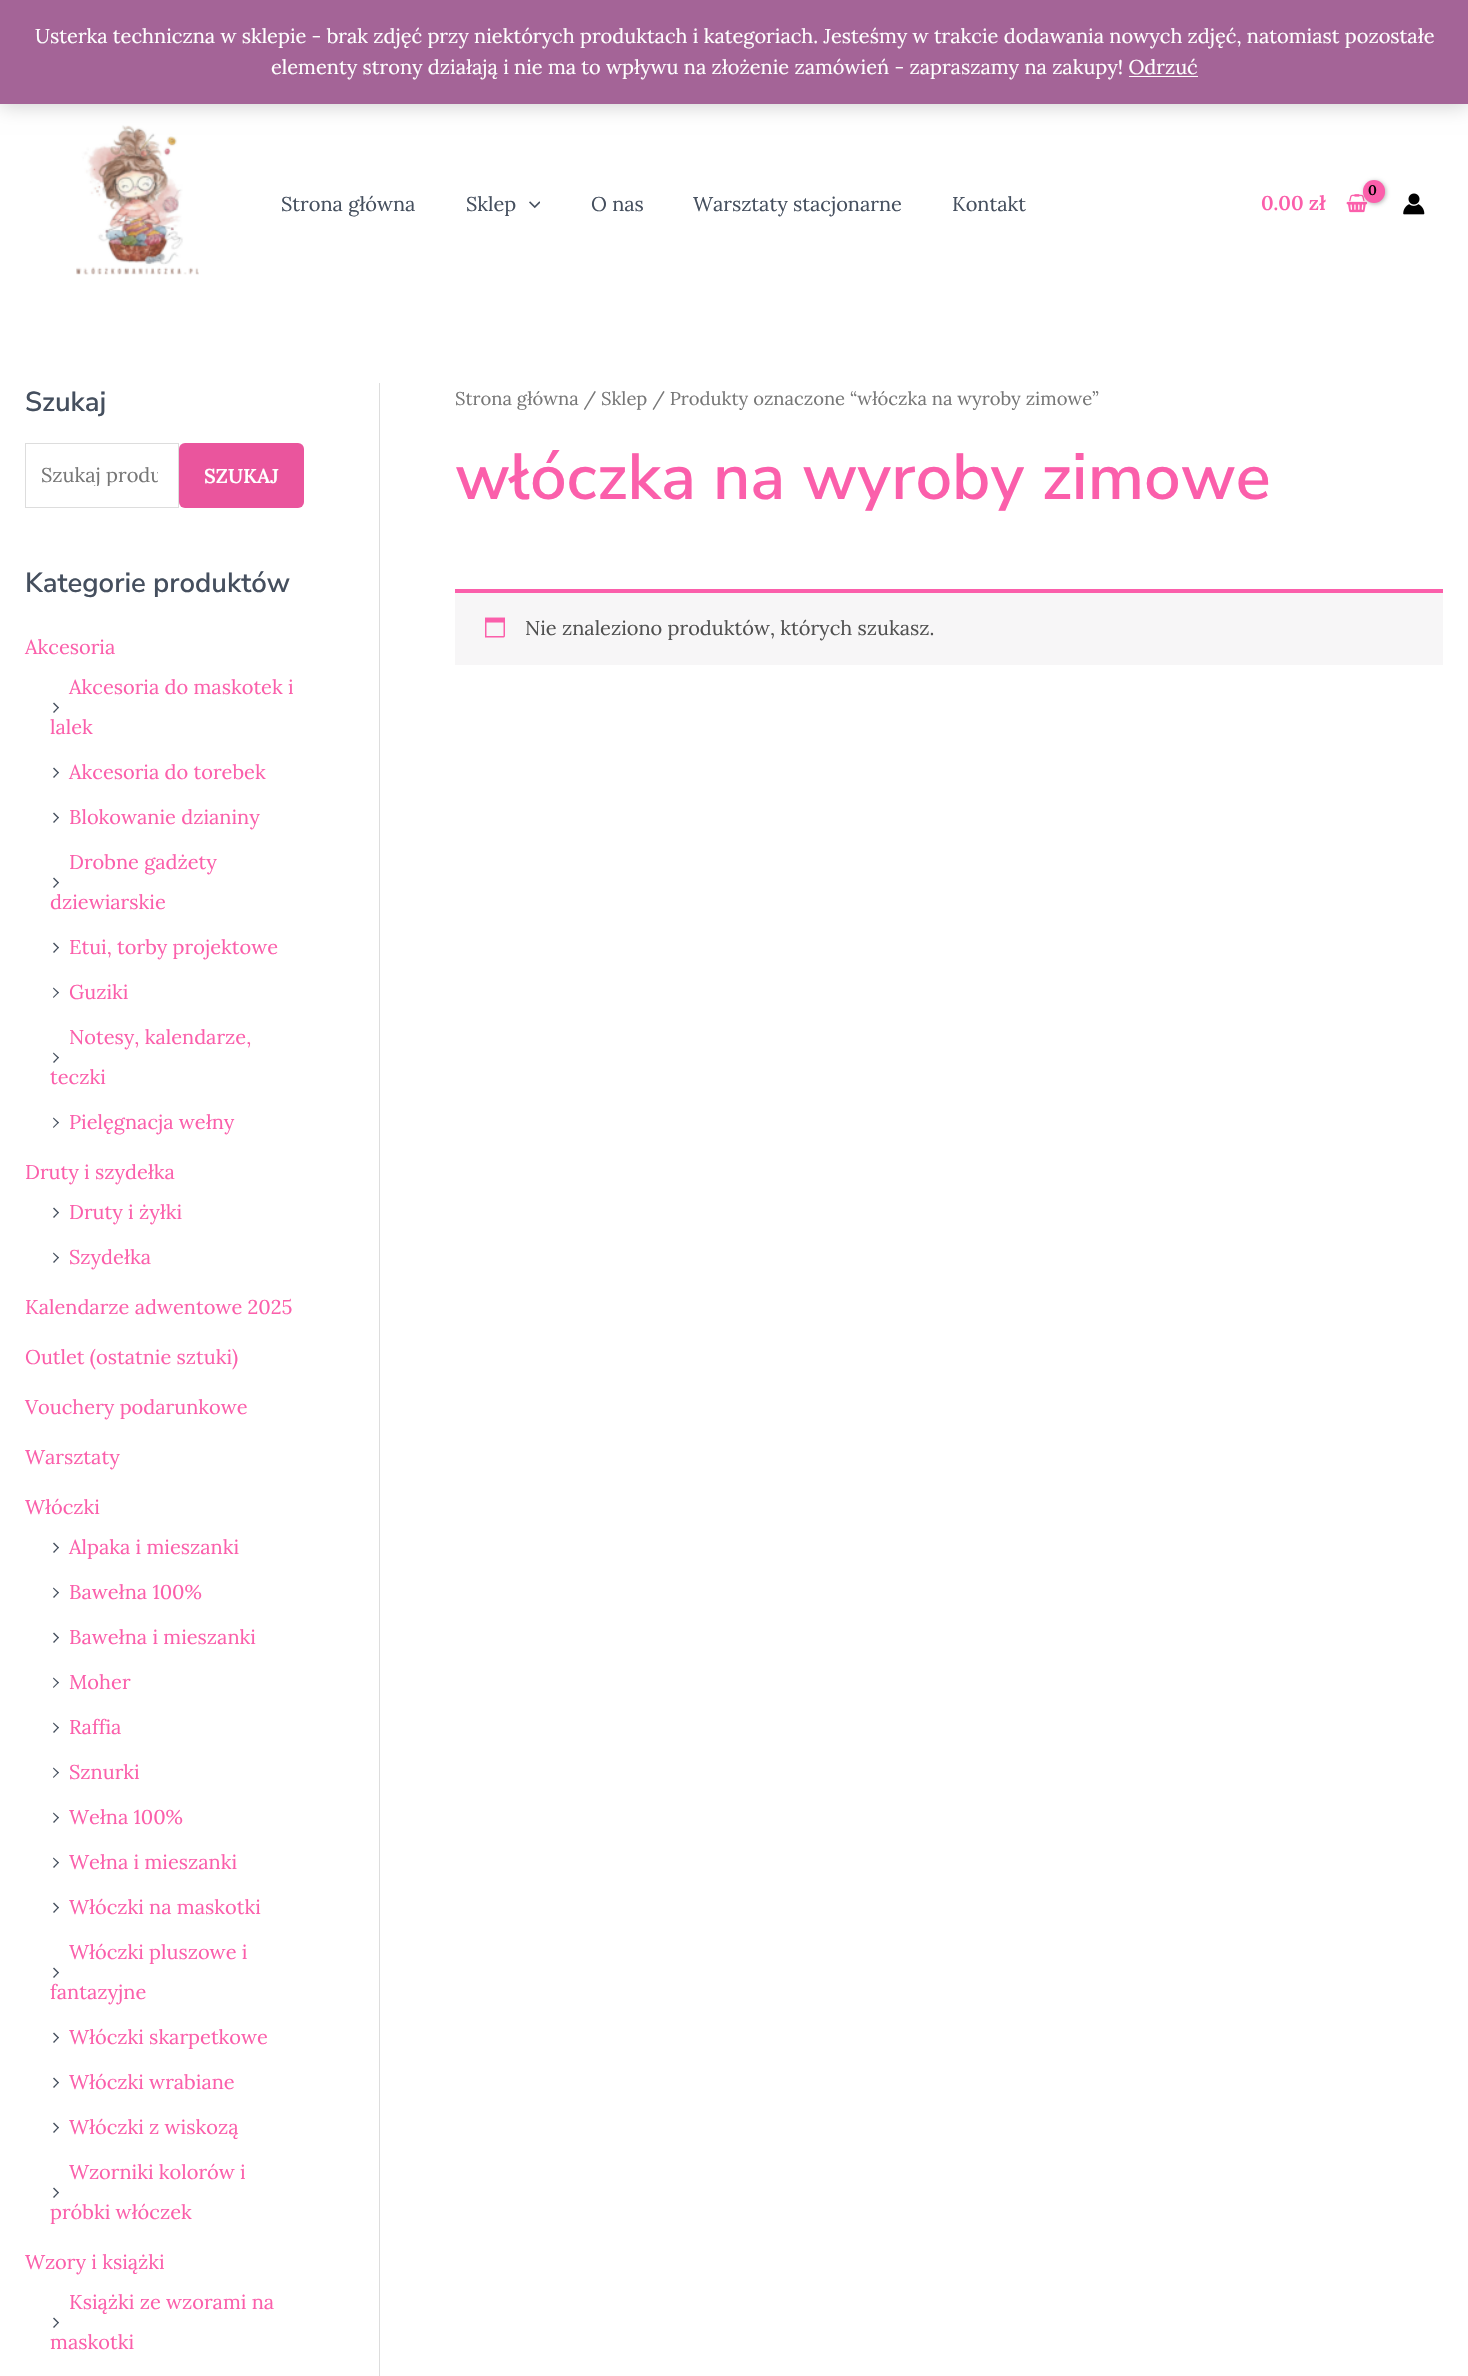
void draw(SkCanvas* canvas) {
  SkPaint paint;
  paint.setAntiAlias(true);
  auto face = [&](const char* family, int weight, float size, bool italic = false) {
    SkFontStyle style(weight, SkFontStyle::kNormal_Width,
      italic ? SkFontStyle::kItalic_Slant : SkFontStyle::kUpright_Slant);
    SkFont result(fontMgr->matchFamilyStyle(family, style), size);
    result.setSubpixel(true);
    return result;
  };
  auto writeSpaced = [&](const char* s, float x, float y, const SkFont& font, const SkPaint& ink, float letter, float word) {
    std::vector<SkGlyphID> glyphs(font.countText(s, strlen(s), SkTextEncoding::kUTF8));
    std::vector<float> xs(glyphs.size());
    font.textToGlyphs(s, strlen(s), SkTextEncoding::kUTF8, glyphs);
    font.getXPos(glyphs, xs, x);
    float extra = 0;
    for (size_t i = 0; i < glyphs.size(); i++) {
      xs[i] += extra;
      extra += letter + word * (glyphs[i] == font.unicharToGlyph(' '));
    }
    canvas->drawTextBlob(SkTextBlob::MakeFromPosHGlyphs(glyphs, xs, y, font), 0, 0, ink);
  };
  auto paste = [&](const char* path, float x, float y, float w, float h) {
    auto image = SkImages::DeferredFromEncodedData(SkData::MakeFromFileName(path));
    canvas->drawImageRect(image, SkRect::MakeXYWH(x, y, w, h), SkSamplingOptions());
  };
  auto shape = [&](const char* data, bool evenOdd = false) {
    SkPath result = *SkParsePath::FromSVGString(data);
    if (evenOdd) result.setFillType(SkPathFillType::kEvenOdd);
    return result;
  };
  canvas->clear(0xffffffff);
  paste("img/1.png", 76, 125, 123, 150);
  paint.setColor(0x33000000);
  paint.setMaskFilter(SkMaskFilter::MakeBlur(kNormal_SkBlurStyle, 10));
  canvas->drawRect(SkRect::MakeXYWH(0, 1, 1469, 104), paint);
  paint.setMaskFilter(nullptr);
  paint.setColor(0xffa46497);
  canvas->drawRect(SkRect::MakeXYWH(0, 0, 1468, 104), paint);
  paint.setColor(0xffffffff);
  canvas->drawRect(SkRect::MakeXYWH(1129, 76, 69, 1), paint);
  paste("img/2.png", 529, 201, 11, 8);
  paste("img/3.png", 1346, 194, 22, 19);
  paint.setColor(0x4d000000);
  paint.setMaskFilter(SkMaskFilter::MakeBlur(kNormal_SkBlurStyle, 2));
  canvas->drawRoundRect(SkRect::MakeXYWH(1364, 181, 22, 23), 11, 11, paint);
  paint.setMaskFilter(nullptr);
  paint.setColor(0xfffb5fab);
  canvas->drawRoundRect(SkRect::MakeXYWH(1363, 180, 22, 23), 11, 11, paint);
  paste("img/4.png", 1403, 193, 22, 22);
  paint.setColor(0xffdddddd);
  canvas->drawRect(SkRect::MakeXYWH(379, 383, 1, 1993), paint);
  paint.setStroke(true);
  paint.setStrokeWidth(1);
  canvas->drawRect(SkRect::MakeXYWH(25.5f, 443.5f, 153, 64), paint);
  paint.setStroke(false);
  paint.setColor(0xffea559d);
  canvas->drawRoundRect(SkRect::MakeXYWH(179, 443, 125, 65), 6, 6, paint);
  paint.setColor(0xff454f5e);
  canvas->drawPath(shape("M54 702.5L59 707.5L58 708.5L53 703.5Z"), paint);
  canvas->drawPath(shape("M58 707L59 707.5L54 713L53 712Z"), paint);
  canvas->drawPath(shape("M54 767.5L59 772.5L58 773.5L53 768.5Z"), paint);
  canvas->drawPath(shape("M58 772L59 772.5L54 778L53 777Z"), paint);
  canvas->drawPath(shape("M54 812.5L59 817.5L58 818.5L53 813.5Z"), paint);
  canvas->drawPath(shape("M58 817L59 817.5L54 823L53 822Z"), paint);
  canvas->drawPath(shape("M54 877.5L59 882.5L58 883.5L53 878.5Z"), paint);
  canvas->drawPath(shape("M58 882L59 882.5L54 888L53 887Z"), paint);
  canvas->drawPath(shape("M54 942.5L59 947.5L58 948.5L53 943.5Z"), paint);
  canvas->drawPath(shape("M58 947L59 947.5L54 953L53 952Z"), paint);
  canvas->drawPath(shape("M53.5 987.5L59 992.5L58 993.5L53 988.5Z"), paint);
  canvas->drawPath(shape("M58 992L59 992.5L53.5 998L53 997Z"), paint);
  canvas->drawPath(shape("M53.5 1052.5L59 1057.5L58 1058.5L53 1053.5Z"), paint);
  canvas->drawPath(shape("M58 1057L59 1057.5L54 1063L53 1062Z"), paint);
  canvas->drawPath(shape("M53.5 1117.5L59 1122.5L58 1123.5L53 1118.5Z"), paint);
  canvas->drawPath(shape("M58 1122L59 1122.5L53.5 1128L53 1127Z"), paint);
  canvas->drawPath(shape("M54 1207.5L59 1212.5L58 1213.5L53 1208.5Z"), paint);
  canvas->drawPath(shape("M58 1212L59 1212.5L54 1218L53 1217Z"), paint);
  canvas->drawPath(shape("M53.5 1252.5L59 1257.5L58 1258.5L53 1253.5Z"), paint);
  canvas->drawPath(shape("M58 1257L59 1257.5L54 1263L53 1262Z"), paint);
  canvas->drawPath(shape("M54 1542.5L59 1547.5L58 1548.5L53 1543.5Z"), paint);
  canvas->drawPath(shape("M58 1547L59 1547.5L54 1553L53 1552Z"), paint);
  canvas->drawPath(shape("M53.5 1587.5L59 1592.5L58 1593.5L53 1588.5Z"), paint);
  canvas->drawPath(shape("M58 1592L59 1592.5L54 1598L53 1597Z"), paint);
  canvas->drawPath(shape("M54 1632.5L59 1637.5L58 1638.5L53 1633.5Z"), paint);
  canvas->drawPath(shape("M58 1637L59 1637.5L54 1643L53 1642Z"), paint);
  canvas->drawPath(shape("M53.5 1677.5L59 1682.5L58 1683.5L53 1678.5Z"), paint);
  canvas->drawPath(shape("M58 1682L59 1682.5L53.5 1688L53 1687Z"), paint);
  canvas->drawPath(shape("M53.5 1722.5L59 1727.5L58 1728.5L53 1723.5Z"), paint);
  canvas->drawPath(shape("M58 1727L59 1727.5L54 1733L53 1732Z"), paint);
  canvas->drawPath(shape("M53.5 1767.5L59 1772.5L58 1773.5L53 1768.5Z"), paint);
  canvas->drawPath(shape("M58 1772L59 1772.5L53.5 1778L53 1777Z"), paint);
  canvas->drawPath(shape("M53.5 1812.5L59 1817.5L58 1818.5L53 1813.5Z"), paint);
  canvas->drawPath(shape("M58 1817L59 1817.5L54 1823L53 1822Z"), paint);
  canvas->drawPath(shape("M53.5 1857.5L59 1862.5L58 1863.5L53 1858.5Z"), paint);
  canvas->drawPath(shape("M58 1862L59 1862.5L54 1868L53 1867Z"), paint);
  canvas->drawPath(shape("M54 1902.5L59 1907.5L58 1908.5L53 1903.5Z"), paint);
  canvas->drawPath(shape("M58 1907L59 1907.5L54 1913L53 1912Z"), paint);
  canvas->drawPath(shape("M54 1967.5L59 1972.5L58 1973.5L53 1968.5Z"), paint);
  canvas->drawPath(shape("M58 1972L59 1972.5L54 1978L53 1977Z"), paint);
  canvas->drawPath(shape("M54 2032.5L59 2037.5L58 2038.5L53 2033.5Z"), paint);
  canvas->drawPath(shape("M58 2037L59 2037.5L54 2043L53 2042Z"), paint);
  canvas->drawPath(shape("M54 2077.5L59 2082.5L58 2083.5L53 2078.5Z"), paint);
  canvas->drawPath(shape("M58 2082L59 2082.5L54 2088L53 2087Z"), paint);
  canvas->drawPath(shape("M54 2122.5L59 2127.5L58 2128.5L53 2123.5Z"), paint);
  canvas->drawPath(shape("M58 2127L59 2127.5L54 2133L53 2132Z"), paint);
  canvas->drawPath(shape("M54 2187.5L59 2192.5L58 2193.5L53 2188.5Z"), paint);
  canvas->drawPath(shape("M58 2192L59 2192.5L54 2198L53 2197Z"), paint);
  canvas->drawPath(shape("M54 2317.5L59 2322.5L58 2323.5L53 2318.5Z"), paint);
  canvas->drawPath(shape("M58 2322L59 2322.5L54 2328L53 2327Z"), paint);
  paint.setColor(0xfff7f6f7);
  canvas->drawRect(SkRect::MakeXYWH(455, 593, 988, 72), paint);
  paint.setColor(0xfffb5fab);
  canvas->drawRect(SkRect::MakeXYWH(455, 589, 988, 4), paint);
  paste("img/5.png", 485, 617, 20, 21);
  auto f0 = face("Lora", 400, 20);
  paint.setColor(0xffffffff);
  canvas->drawString("Usterka techniczna w sklepie - brak zdjęć przy niektórych produktach i kategoriach. Jesteśmy w trakcie dodawania nowych zdjęć, natomiast pozostałe", 35, 43, f0, paint);
  canvas->drawString("elementy strony działają i nie ma to wpływu na złożenie zamówień - zapraszamy na zakupy! Odrzuć", 271, 74, f0, paint);
  paint.setColor(0xff454f5e);
  {
    const struct { const char* s; float x, y; } items[] = {
      {"Strona główna", 281, 211},
      {"Sklep", 466, 211},
      {"O nas", 591, 211},
      {"Warsztaty stacjonarne", 693, 211},
      {"Kontakt", 952, 211},
    };
    for (auto [s, x, y] : items) {
      canvas->drawString(s, x, y, f0, paint);
    }
  }
  auto f1 = face("Lora", 600, 14);
  paint.setColor(0xff000000);
  writeSpaced("0", 1368, 195, f1, paint, -1, 0);
  auto f2 = face("Lora", 600, 20);
  paint.setColor(0xfffb5fab);
  canvas->drawString("0.00 zł", 1261, 210, f2, paint);
  auto f3 = face("Nunito Sans", 600, 27.5f);
  paint.setColor(0xff454f5e);
  canvas->drawString("Szukaj", 25, 411, f3, paint);
  canvas->save();
  canvas->clipRect(SkRect::MakeXYWH(41, 461, 117, 25));
  paint.setColor(0xff777777);
  canvas->drawString("Szukaj produ", 41, 482, f0, paint);
  canvas->restore();
  paint.setColor(0xffffffff);
  canvas->drawString("SZUKAJ", 204, 483, f2, paint);
  paint.setColor(0xff454f5e);
  canvas->drawString("Kategorie produktów", 25, 592, f3, paint);
  paint.setColor(0xfffb5fab);
  {
    const struct { const char* s; float x, y; } items[] = {
      {"Akcesoria", 25, 654},
      {"Akcesoria do maskotek i", 69, 694},
      {"lalek", 50, 734},
      {"Akcesoria do torebek", 69, 779},
      {"Blokowanie dzianiny", 69, 824},
      {"Drobne gadżety", 69, 869},
      {"dziewiarskie", 50, 909},
      {"Etui, torby projektowe", 69, 954},
      {"Guziki", 69, 999},
      {"Notesy, kalendarze,", 69, 1044},
      {"teczki", 50, 1084},
      {"Pielęgnacja wełny", 69, 1129},
      {"Druty i szydełka", 25, 1179},
      {"Druty i żyłki", 69, 1219},
      {"Szydełka", 69, 1264},
      {"Kalendarze adwentowe 2025", 25, 1314},
      {"Outlet (ostatnie sztuki)", 25, 1364},
      {"Vouchery podarunkowe", 25, 1414},
      {"Warsztaty", 25, 1464},
      {"Włóczki", 25, 1514},
      {"Alpaka i mieszanki", 69, 1554},
      {"Bawełna 100%", 69, 1599},
      {"Bawełna i mieszanki", 69, 1644},
      {"Moher", 69, 1689},
      {"Raffia", 69, 1734},
      {"Sznurki", 69, 1779},
      {"Wełna 100%", 69, 1824},
      {"Wełna i mieszanki", 69, 1869},
      {"Włóczki na maskotki", 69, 1914},
      {"Włóczki pluszowe i", 69, 1959},
      {"fantazyjne", 50, 1999},
      {"Włóczki skarpetkowe", 69, 2044},
      {"Włóczki wrabiane", 69, 2089},
      {"Włóczki z wiskozą", 69, 2134},
      {"Wzorniki kolorów i", 69, 2179},
      {"próbki włóczek", 50, 2219},
      {"Wzory i książki", 25, 2269},
      {"Książki ze wzorami na", 69, 2309},
      {"maskotki", 50, 2349},
    };
    for (auto [s, x, y] : items) {
      canvas->drawString(s, x, y, f0, paint);
    }
  }
  auto f4 = face("Lora", 400, 18.4f);
  paint.setColor(0xff777777);
  canvas->drawString("Strona główna / Sklep / Produkty oznaczone “włóczka na wyroby zimowe”", 455, 405, f4, paint);
  auto f5 = face("Nunito Sans", 600, 65);
  paint.setColor(0xfffb5fab);
  canvas->drawString("włóczka na wyroby zimowe", 455, 499, f5, paint);
  paint.setColor(0xff515151);
  canvas->drawString("Nie znaleziono produktów, których szukasz.", 525, 635, f0, paint);
}
